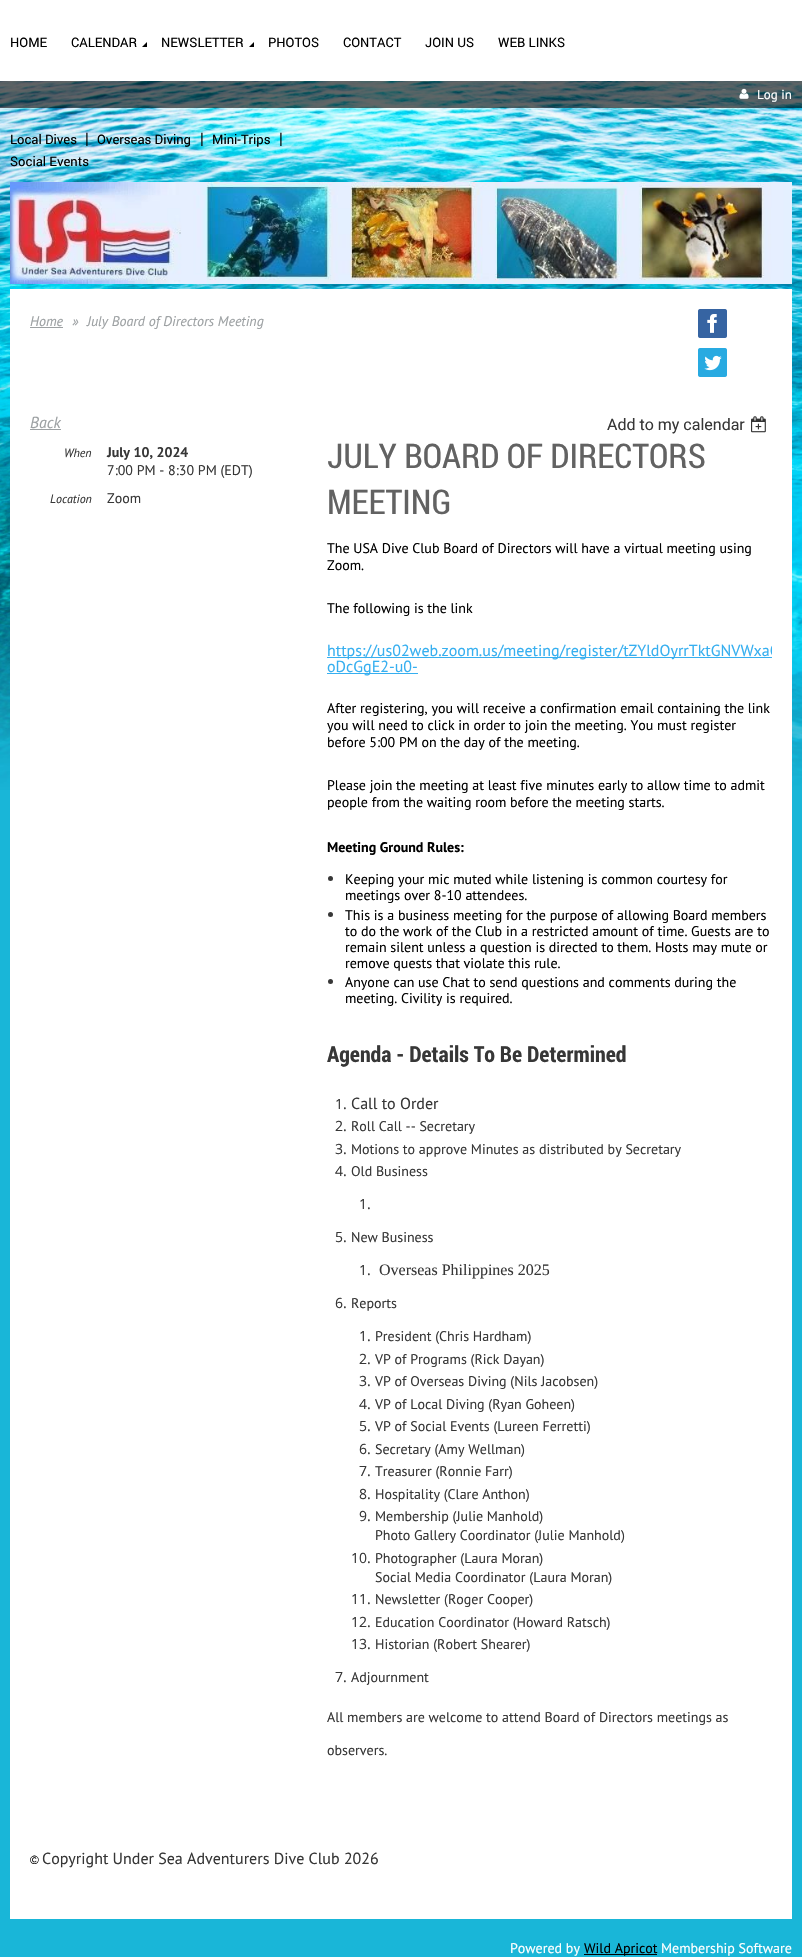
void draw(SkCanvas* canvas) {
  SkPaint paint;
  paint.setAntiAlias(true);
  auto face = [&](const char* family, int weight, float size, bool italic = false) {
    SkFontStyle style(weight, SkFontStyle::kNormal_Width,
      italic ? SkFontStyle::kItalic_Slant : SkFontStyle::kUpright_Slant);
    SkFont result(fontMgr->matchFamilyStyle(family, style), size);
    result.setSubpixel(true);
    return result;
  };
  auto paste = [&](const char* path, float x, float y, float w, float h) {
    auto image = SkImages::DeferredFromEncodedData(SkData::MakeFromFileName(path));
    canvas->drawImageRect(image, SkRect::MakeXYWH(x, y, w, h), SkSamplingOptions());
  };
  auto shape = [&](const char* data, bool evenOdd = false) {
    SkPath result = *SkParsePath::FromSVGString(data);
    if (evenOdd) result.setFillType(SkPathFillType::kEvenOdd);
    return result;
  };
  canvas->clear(0xff19b6d8);
  paste("img/1.png", 0, 81, 802, 709);
  paint.setColor(0xffffffff);
  canvas->drawRect(SkRect::MakeXYWH(0, 0, 802, 81), paint);
  paint.setColor(0xff000000);
  canvas->drawPath(shape("M147 47H142L147 42Z"), paint);
  canvas->drawPath(shape("M254 47H249L254 42Z"), paint);
  paint.setColor(0x99000000);
  canvas->drawRect(SkRect::MakeXYWH(0, 81, 802, 27), paint);
  paste("img/2.png", 739, 88, 10, 11);
  paste("img/3.png", 10, 182, 782, 102);
  paint.setColor(0xffffffff);
  canvas->drawRect(SkRect::MakeXYWH(10, 289, 782, 1630), paint);
  paint.setColor(0xff9da1a3);
  canvas->drawRect(SkRect::MakeXYWH(30, 327, 33, 1), paint);
  paste("img/4.png", 698, 309, 29, 29);
  paste("img/5.png", 698, 348, 29, 29);
  canvas->drawRect(SkRect::MakeXYWH(30, 429, 31, 1), paint);
  paste("img/6.png", 751, 416, 15, 17);
  paint.setColor(0xff36aff0);
  canvas->drawRect(SkRect::MakeXYWH(327, 657, 445, 1), paint);
  canvas->drawRect(SkRect::MakeXYWH(327, 673, 91, 1), paint);
  paint.setColor(0xff373737);
  canvas->drawCircle(330.5f, 878.5f, 2.5f, paint);
  canvas->drawCircle(330.5f, 914.5f, 2.5f, paint);
  canvas->drawCircle(330.5f, 981.5f, 2.5f, paint);
  paint.setColor(0xff000000);
  canvas->drawRect(SkRect::MakeXYWH(584, 1954, 73, 1), paint);
  auto f0 = face("Roboto", 400, 13);
  {
    const struct { const char* s; float x, y; } items[] = {
      {"HOME", 10, 47},
      {"CALENDAR", 71, 47},
      {"NEWSLETTER", 161, 47},
      {"PHOTOS", 268, 47},
      {"CONTACT", 343, 47},
      {"JOIN US", 425, 47},
      {"WEB LINKS", 498, 47},
    };
    for (auto [s, x, y] : items) {
      canvas->drawString(s, x, y, f0, paint);
    }
  }
  auto f1 = face("PT Sans", 400, 13);
  paint.setColor(0xffffffff);
  canvas->drawString("Log in", 757, 99, f1, paint);
  paint.setColor(0xff000000);
  canvas->drawString("Local Dives", 10, 144, f0, paint);
  auto f2 = face("PT Sans", 400, 16);
  canvas->drawString("|", 85, 144, f2, paint);
  canvas->drawString("Overseas Diving", 97, 144, f0, paint);
  canvas->drawString("|", 200, 144, f2, paint);
  canvas->drawString("Mini-Trips", 212, 144, f0, paint);
  canvas->drawString("|", 279, 144, f2, paint);
  canvas->drawString("Social Events", 10, 166, f0, paint);
  auto f3 = face("PT Sans", 400, 14, true);
  paint.setColor(0xff9da1a3);
  {
    const struct { const char* s; float x, y; } items[] = {
      {"Home", 30, 326},
      {"»", 72, 326},
      {"July Board of Directors Meeting", 87, 326},
    };
    for (auto [s, x, y] : items) {
      canvas->drawString(s, x, y, f3, paint);
    }
  }
  auto f4 = face("PT Sans", 400, 16, true);
  canvas->drawString("Back", 30, 428, f4, paint);
  auto f5 = face("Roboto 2", 400, 16);
  paint.setColor(0xff373737);
  canvas->drawString("Add to my calendar", 607, 430, f5, paint);
  auto f6 = face("Roboto Condensed", 400, 34);
  paint.setColor(0xff626262);
  canvas->drawString("JULY BOARD OF DIRECTORS", 327, 468, f6, paint);
  canvas->drawString("MEETING", 327, 514, f6, paint);
  auto f7 = face("PT Sans", 400, 12, true);
  paint.setColor(0xff373737);
  canvas->drawString("When", 64, 457, f7, paint);
  auto f8 = face("PT Sans", 700, 14);
  canvas->drawString("July 10, 2024", 107, 457, f8, paint);
  auto f9 = face("PT Sans", 400, 14);
  canvas->drawString("7:00 PM - 8:30 PM (EDT)", 107, 475, f9, paint);
  canvas->drawString("Location", 50, 503, f7, paint);
  canvas->drawString("Zoom", 107, 503, f9, paint);
  paint.setColor(0xff000000);
  {
    const struct { const char* s; float x, y; } items[] = {
      {"The USA Dive Club Board of Directors will have a virtual meeting using", 327, 553},
      {"Zoom.", 327, 570},
      {"The following is the link", 327, 613},
    };
    for (auto [s, x, y] : items) {
      canvas->drawString(s, x, y, f9, paint);
    }
  }
  canvas->save();
  canvas->clipRect(SkRect::MakeXYWH(30, 407, 742, 1420));
  paint.setColor(0xff36aff0);
  canvas->drawString("https://us02web.zoom.us/meeting/register/tZYldOyrrTktGNVWxaQ", 327, 656, f2, paint);
  canvas->restore();
  canvas->drawString("oDcGgE2-u0-", 327, 672, f2, paint);
  paint.setColor(0xff000000);
  {
    const struct { const char* s; float x, y; } items[] = {
      {"After registering, you will receive a confirmation email containing the link", 327, 713},
      {"you will need to click in order to join the meeting. You must register", 327, 730},
      {"before 5:00 PM on the day of the meeting.", 327, 747},
      {"Please join the meeting at least five minutes early to allow time to admit", 327, 790},
      {"people from the waiting room before the meeting starts.", 327, 807},
    };
    for (auto [s, x, y] : items) {
      canvas->drawString(s, x, y, f9, paint);
    }
  }
  canvas->drawString("Meeting Ground Rules:", 327, 852, f8, paint);
  {
    const struct { const char* s; float x, y; } items[] = {
      {"Keeping your mic muted while listening is common courtesy for", 345, 884},
      {"meetings over 8-10 attendees.", 345, 900},
      {"This is a business meeting for the purpose of allowing Board members", 345, 920},
      {"to do the work of the Club in a restricted amount of time. Guests are to", 345, 936},
      {"remain silent unless a question is directed to them. Hosts may mute or", 345, 952},
      {"remove quests that violate this rule.", 345, 968},
      {"Anyone can use Chat to send questions and comments during the", 345, 987},
      {"meeting. Civility is required.", 345, 1003},
    };
    for (auto [s, x, y] : items) {
      canvas->drawString(s, x, y, f9, paint);
    }
  }
  auto f10 = face("Roboto Condensed", 700, 22);
  paint.setColor(0xff373737);
  canvas->drawString("Agenda - Details To Be Determined", 327, 1062, f10, paint);
  auto f11 = face("Open Sans", 400, 14);
  canvas->drawString("1.", 335, 1109, f11, paint);
  canvas->drawString("Call to Order", 351, 1109, f2, paint);
  canvas->drawString("2.", 335, 1131, f11, paint);
  canvas->drawString("Roll Call -- Secretary", 351, 1131, f9, paint);
  canvas->drawString("3.", 335, 1154, f11, paint);
  canvas->drawString("Motions to approve Minutes as distributed by Secretary", 351, 1154, f9, paint);
  canvas->drawString("4.", 335, 1176, f11, paint);
  canvas->drawString("Old Business", 351, 1176, f9, paint);
  canvas->drawString("1.", 359, 1209, f11, paint);
  canvas->drawString("5.", 335, 1242, f11, paint);
  canvas->drawString("New Business", 351, 1242, f9, paint);
  canvas->drawString("1.", 359, 1275, f11, paint);
  auto f12 = face("Liberation Serif", 400, 16);
  canvas->drawString("Overseas Philippines 2025", 379, 1275, f12, paint);
  canvas->drawString("6.", 335, 1308, f11, paint);
  canvas->drawString("Reports", 351, 1308, f9, paint);
  canvas->drawString("1.", 359, 1341, f11, paint);
  canvas->drawString("President (Chris Hardham)", 375, 1341, f9, paint);
  canvas->drawString("2.", 359, 1364, f11, paint);
  canvas->drawString("VP of Programs (Rick Dayan)", 375, 1364, f9, paint);
  canvas->drawString("3.", 359, 1386, f11, paint);
  canvas->drawString("VP of Overseas Diving (Nils Jacobsen)", 375, 1386, f9, paint);
  canvas->drawString("4.", 359, 1409, f11, paint);
  canvas->drawString("VP of Local Diving (Ryan Goheen)", 375, 1409, f9, paint);
  canvas->drawString("5.", 359, 1431, f11, paint);
  canvas->drawString("VP of Social Events (Lureen Ferretti)", 375, 1431, f9, paint);
  canvas->drawString("6.", 359, 1454, f11, paint);
  canvas->drawString("Secretary (Amy Wellman)", 375, 1454, f9, paint);
  canvas->drawString("7.", 359, 1476, f11, paint);
  canvas->drawString("Treasurer (Ronnie Farr)", 375, 1476, f9, paint);
  canvas->drawString("8.", 359, 1499, f11, paint);
  canvas->drawString("Hospitality (Clare Anthon)", 375, 1499, f9, paint);
  canvas->drawString("9.", 359, 1521, f11, paint);
  canvas->drawString("Membership (Julie Manhold)", 375, 1521, f9, paint);
  canvas->drawString("Photo Gallery Coordinator (Julie Manhold)", 375, 1540, f9, paint);
  canvas->drawString("10.", 351, 1563, f11, paint);
  canvas->drawString("Photographer (Laura Moran)", 375, 1563, f9, paint);
  canvas->drawString("Social Media Coordinator (Laura Moran)", 375, 1582, f9, paint);
  canvas->drawString("11.", 351, 1604, f11, paint);
  canvas->drawString("Newsletter (Roger Cooper)", 375, 1604, f9, paint);
  canvas->drawString("12.", 351, 1627, f11, paint);
  canvas->drawString("Education Coordinator (Howard Ratsch)", 375, 1627, f9, paint);
  canvas->drawString("13.", 351, 1649, f11, paint);
  canvas->drawString("Historian (Robert Shearer)", 375, 1649, f9, paint);
  canvas->drawString("7.", 335, 1682, f11, paint);
  {
    const struct { const char* s; float x, y; } items[] = {
      {"Adjournment", 351, 1682},
      {"All members are welcome to attend Board of Directors meetings as", 327, 1722},
      {"observers.", 327, 1755},
    };
    for (auto [s, x, y] : items) {
      canvas->drawString(s, x, y, f9, paint);
    }
  }
  auto f13 = face("Liberation Sans", 400, 12);
  paint.setColor(0xff000000);
  canvas->drawString("©", 30, 1864, f13, paint);
  paint.setColor(0xff373737);
  canvas->drawString("Copyright Under Sea Adventurers Dive Club 2026", 42, 1864, f2, paint);
  paint.setColor(0xffffffff);
  canvas->drawString("Powered by", 510, 1953, f9, paint);
  paint.setColor(0xff000000);
  canvas->drawString("Wild Apricot", 584, 1953, f9, paint);
  paint.setColor(0xffffffff);
  canvas->drawString("Membership Software", 661, 1953, f9, paint);
}
